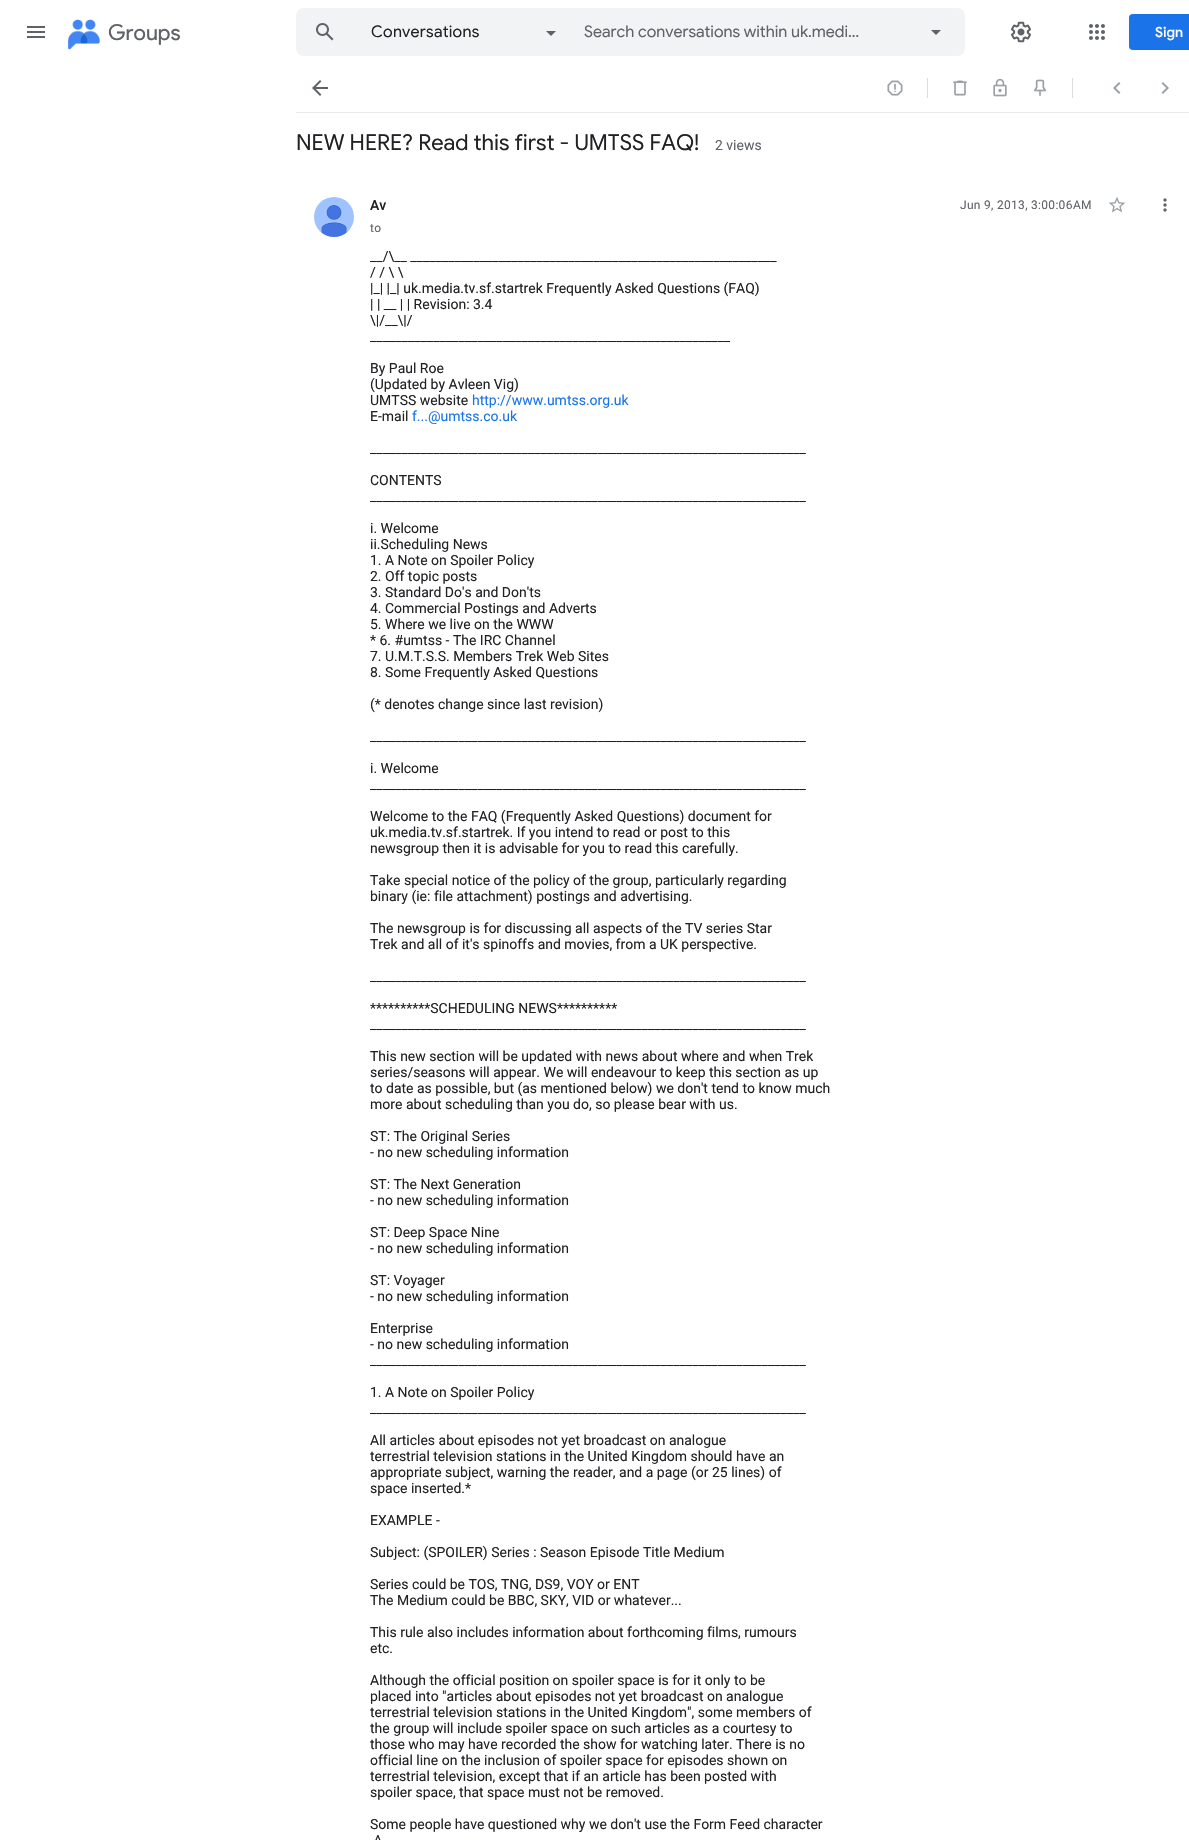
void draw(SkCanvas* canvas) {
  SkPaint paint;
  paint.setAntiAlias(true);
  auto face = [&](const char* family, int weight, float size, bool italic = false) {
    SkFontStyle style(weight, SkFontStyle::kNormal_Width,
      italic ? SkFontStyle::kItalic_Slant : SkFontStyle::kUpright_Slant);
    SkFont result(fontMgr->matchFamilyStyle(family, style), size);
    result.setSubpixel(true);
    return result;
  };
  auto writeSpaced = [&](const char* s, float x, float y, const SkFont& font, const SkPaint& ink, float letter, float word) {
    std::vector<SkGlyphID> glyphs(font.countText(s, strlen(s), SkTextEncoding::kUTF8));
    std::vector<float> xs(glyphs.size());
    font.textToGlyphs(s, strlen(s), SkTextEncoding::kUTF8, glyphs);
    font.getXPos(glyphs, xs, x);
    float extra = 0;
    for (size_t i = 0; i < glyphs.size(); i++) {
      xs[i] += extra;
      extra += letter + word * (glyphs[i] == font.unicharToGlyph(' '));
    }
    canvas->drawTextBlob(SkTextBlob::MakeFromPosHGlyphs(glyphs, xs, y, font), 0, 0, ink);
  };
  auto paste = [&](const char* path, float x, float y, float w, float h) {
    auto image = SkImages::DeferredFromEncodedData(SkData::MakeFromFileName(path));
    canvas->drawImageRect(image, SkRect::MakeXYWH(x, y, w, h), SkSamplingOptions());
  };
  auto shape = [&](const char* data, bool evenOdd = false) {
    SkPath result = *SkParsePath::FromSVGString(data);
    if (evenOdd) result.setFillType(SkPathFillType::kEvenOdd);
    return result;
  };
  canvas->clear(0xffffffff);
  paste("img/1.png", 27, 26, 18, 12);
  paste("img/2.png", 68, 19, 32, 31);
  paint.setColor(0xfff1f3f4);
  canvas->drawRoundRect(SkRect::MakeXYWH(296, 8, 669, 48), 8, 8, paint);
  paste("img/3.png", 316, 23, 18, 18);
  paint.setColor(0xff5f6368);
  canvas->drawPath(shape("M546 31H556L551 36Z"), paint);
  canvas->drawPath(shape("M931 30L936 35L941 30Z"), paint);
  paste("img/4.png", 1011, 21, 20, 22);
  paste("img/5.png", 1089, 24, 16, 16);
  paint.setColor(0xff1a73e8);
  canvas->drawRoundRect(SkRect::MakeXYWH(1129, 14, 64, 36), 4, 4, paint);
  paint.setColor(0xffe8eaed);
  canvas->drawRect(SkRect::MakeXYWH(296, 112, 893, 1), paint);
  paste("img/6.png", 312, 80, 16, 16);
  paste("img/7.png", 887, 80, 16, 16);
  paint.setColor(0xffdddddd);
  canvas->drawRect(SkRect::MakeXYWH(927, 78, 1, 20), paint);
  paste("img/8.png", 953, 80, 14, 16);
  paste("img/9.png", 993, 78, 14, 19);
  paste("img/10.png", 1034, 79, 12, 18);
  canvas->drawRect(SkRect::MakeXYWH(1072, 78, 1, 20), paint);
  paste("img/11.png", 1113, 82, 8, 12);
  paste("img/12.png", 1161, 82, 8, 12);
  paste("img/13.png", 314, 197, 40, 40);
  paste("img/14.png", 1108, 197, 18, 16);
  paste("img/15.png", 1163, 198, 4, 14);
  auto f0 = face("Product Sans", 400, 22);
  paint.setColor(0xff5f6368);
  canvas->drawString("Groups", 108, 40, f0, paint);
  auto f1 = face("Google Sans", 400, 16);
  paint.setColor(0xff202124);
  writeSpaced("Conversations", 371, 37, f1, paint, 0.25f, 0);
  paint.setColor(0xff5f6368);
  canvas->drawString("Search conversations within uk.medi…", 584, 37, f1, paint);
  auto f2 = face("Google Sans", 500, 14);
  paint.setColor(0xffffffff);
  canvas->drawString("Sign", 1155, 37, f2, paint);
  auto f3 = face("Google Sans", 400, 22);
  paint.setColor(0xff202124);
  canvas->drawString("NEW HERE? Read this first - UMTSS FAQ!", 296, 150, f3, paint);
  auto f4 = face("Roboto", 400, 14);
  paint.setColor(0xff5f6368);
  canvas->drawString("2 views", 715, 150, f4, paint);
  auto f5 = face("Roboto", 500, 14);
  paint.setColor(0xff202124);
  canvas->drawString("Av", 370, 210, f5, paint);
  auto f6 = face("Roboto", 400, 12);
  paint.setColor(0xff5f6368);
  writeSpaced("Jun 9, 2013, 3:00:06 AM", 960, 209, f6, paint, 0.3f, 0);
  writeSpaced("to", 370, 232, f6, paint, 0.3f, 0);
  paint.setColor(0xff202124);
  {
    const struct { const char* s; float x, y; } items[] = {
      {"__/\\__ __________________________________________________________", 370, 261},
      {"/ / \\ \\", 370, 277},
      {"|_| |_| uk.media.tv.sf.startrek Frequently Asked Questions (FAQ)", 370, 293},
      {"| | __ | | Revision: 3.4", 370, 309},
      {"\\|/__\\|/", 370, 325},
      {"_________________________________________________________", 370, 341},
      {"By Paul Roe", 370, 373},
      {"(Updated by Avleen Vig)", 370, 389},
      {"UMTSS website", 370, 405},
    };
    for (auto [s, x, y] : items) {
      canvas->drawString(s, x, y, f4, paint);
    }
  }
  paint.setColor(0xff1a73e8);
  canvas->drawString("http://www.umtss.org.uk", 472, 405, f4, paint);
  paint.setColor(0xff202124);
  canvas->drawString("E-mail", 370, 421, f4, paint);
  paint.setColor(0xff1a73e8);
  canvas->drawString("f...@umtss.co.uk", 412, 421, f4, paint);
  paint.setColor(0xff202124);
  {
    const struct { const char* s; float x, y; } items[] = {
      {"_____________________________________________________________________", 370, 453},
      {"CONTENTS", 370, 485},
      {"_____________________________________________________________________", 370, 501},
      {"i. Welcome", 370, 533},
      {"ii.Scheduling News", 370, 549},
      {"1. A Note on Spoiler Policy", 370, 565},
      {"2. Off topic posts", 370, 581},
      {"3. Standard Do's and Don'ts", 370, 597},
      {"4. Commercial Postings and Adverts", 370, 613},
      {"5. Where we live on the WWW", 370, 629},
      {"* 6. #umtss - The IRC Channel", 370, 645},
      {"7. U.M.T.S.S. Members Trek Web Sites", 370, 661},
      {"8. Some Frequently Asked Questions", 370, 677},
      {"(* denotes change since last revision)", 370, 709},
      {"_____________________________________________________________________", 370, 741},
      {"i. Welcome", 370, 773},
      {"_____________________________________________________________________", 370, 789},
      {"Welcome to the FAQ (Frequently Asked Questions) document for", 370, 821},
      {"uk.media.tv.sf.startrek. If you intend to read or post to this", 370, 837},
      {"newsgroup then it is advisable for you to read this carefully.", 370, 853},
      {"Take special notice of the policy of the group, particularly regarding", 370, 885},
      {"binary (ie: file attachment) postings and advertising.", 370, 901},
      {"The newsgroup is for discussing all aspects of the TV series Star", 370, 933},
      {"Trek and all of it's spinoffs and movies, from a UK perspective.", 370, 949},
      {"_____________________________________________________________________", 370, 981},
      {"**********SCHEDULING NEWS**********", 370, 1013},
      {"_____________________________________________________________________", 370, 1029},
      {"This new section will be updated with news about where and when Trek", 370, 1061},
      {"series/seasons will appear. We will endeavour to keep this section as up", 370, 1077},
      {"to date as possible, but (as mentioned below) we don't tend to know much", 370, 1093},
      {"more about scheduling than you do, so please bear with us.", 370, 1109},
      {"ST: The Original Series", 370, 1141},
      {"- no new scheduling information", 370, 1157},
      {"ST: The Next Generation", 370, 1189},
      {"- no new scheduling information", 370, 1205},
      {"ST: Deep Space Nine", 370, 1237},
      {"- no new scheduling information", 370, 1253},
      {"ST: Voyager", 370, 1285},
      {"- no new scheduling information", 370, 1301},
      {"Enterprise", 370, 1333},
      {"- no new scheduling information", 370, 1349},
      {"_____________________________________________________________________", 370, 1365},
      {"1. A Note on Spoiler Policy", 370, 1397},
      {"_____________________________________________________________________", 370, 1413},
      {"All articles about episodes not yet broadcast on analogue", 370, 1445},
      {"terrestrial television stations in the United Kingdom should have an", 370, 1461},
      {"appropriate subject, warning the reader, and a page (or 25 lines) of", 370, 1477},
      {"space inserted.*", 370, 1493},
      {"EXAMPLE -", 370, 1525},
      {"Subject: (SPOILER) Series : Season Episode Title Medium", 370, 1557},
      {"Series could be TOS, TNG, DS9, VOY or ENT", 370, 1589},
      {"The Medium could be BBC, SKY, VID or whatever...", 370, 1605},
      {"This rule also includes information about forthcoming films, rumours", 370, 1637},
      {"etc.", 370, 1653},
      {"Although the official position on spoiler space is for it only to be", 370, 1685},
      {"placed into \"articles about episodes not yet broadcast on analogue", 370, 1701},
      {"terrestrial television stations in the United Kingdom\", some members of", 370, 1717},
      {"the group will include spoiler space on such articles as a courtesy to", 370, 1733},
      {"those who may have recorded the show for watching later. There is no", 370, 1749},
      {"official line on the inclusion of spoiler space for episodes shown on", 370, 1765},
      {"terrestrial television, except that if an article has been posted with", 370, 1781},
      {"spoiler space, that space must not be removed.", 370, 1797},
      {"Some people have questioned why we don't use the Form Feed character", 370, 1829},
      {"^", 375, 1845},
    };
    for (auto [s, x, y] : items) {
      canvas->drawString(s, x, y, f4, paint);
    }
  }
}
